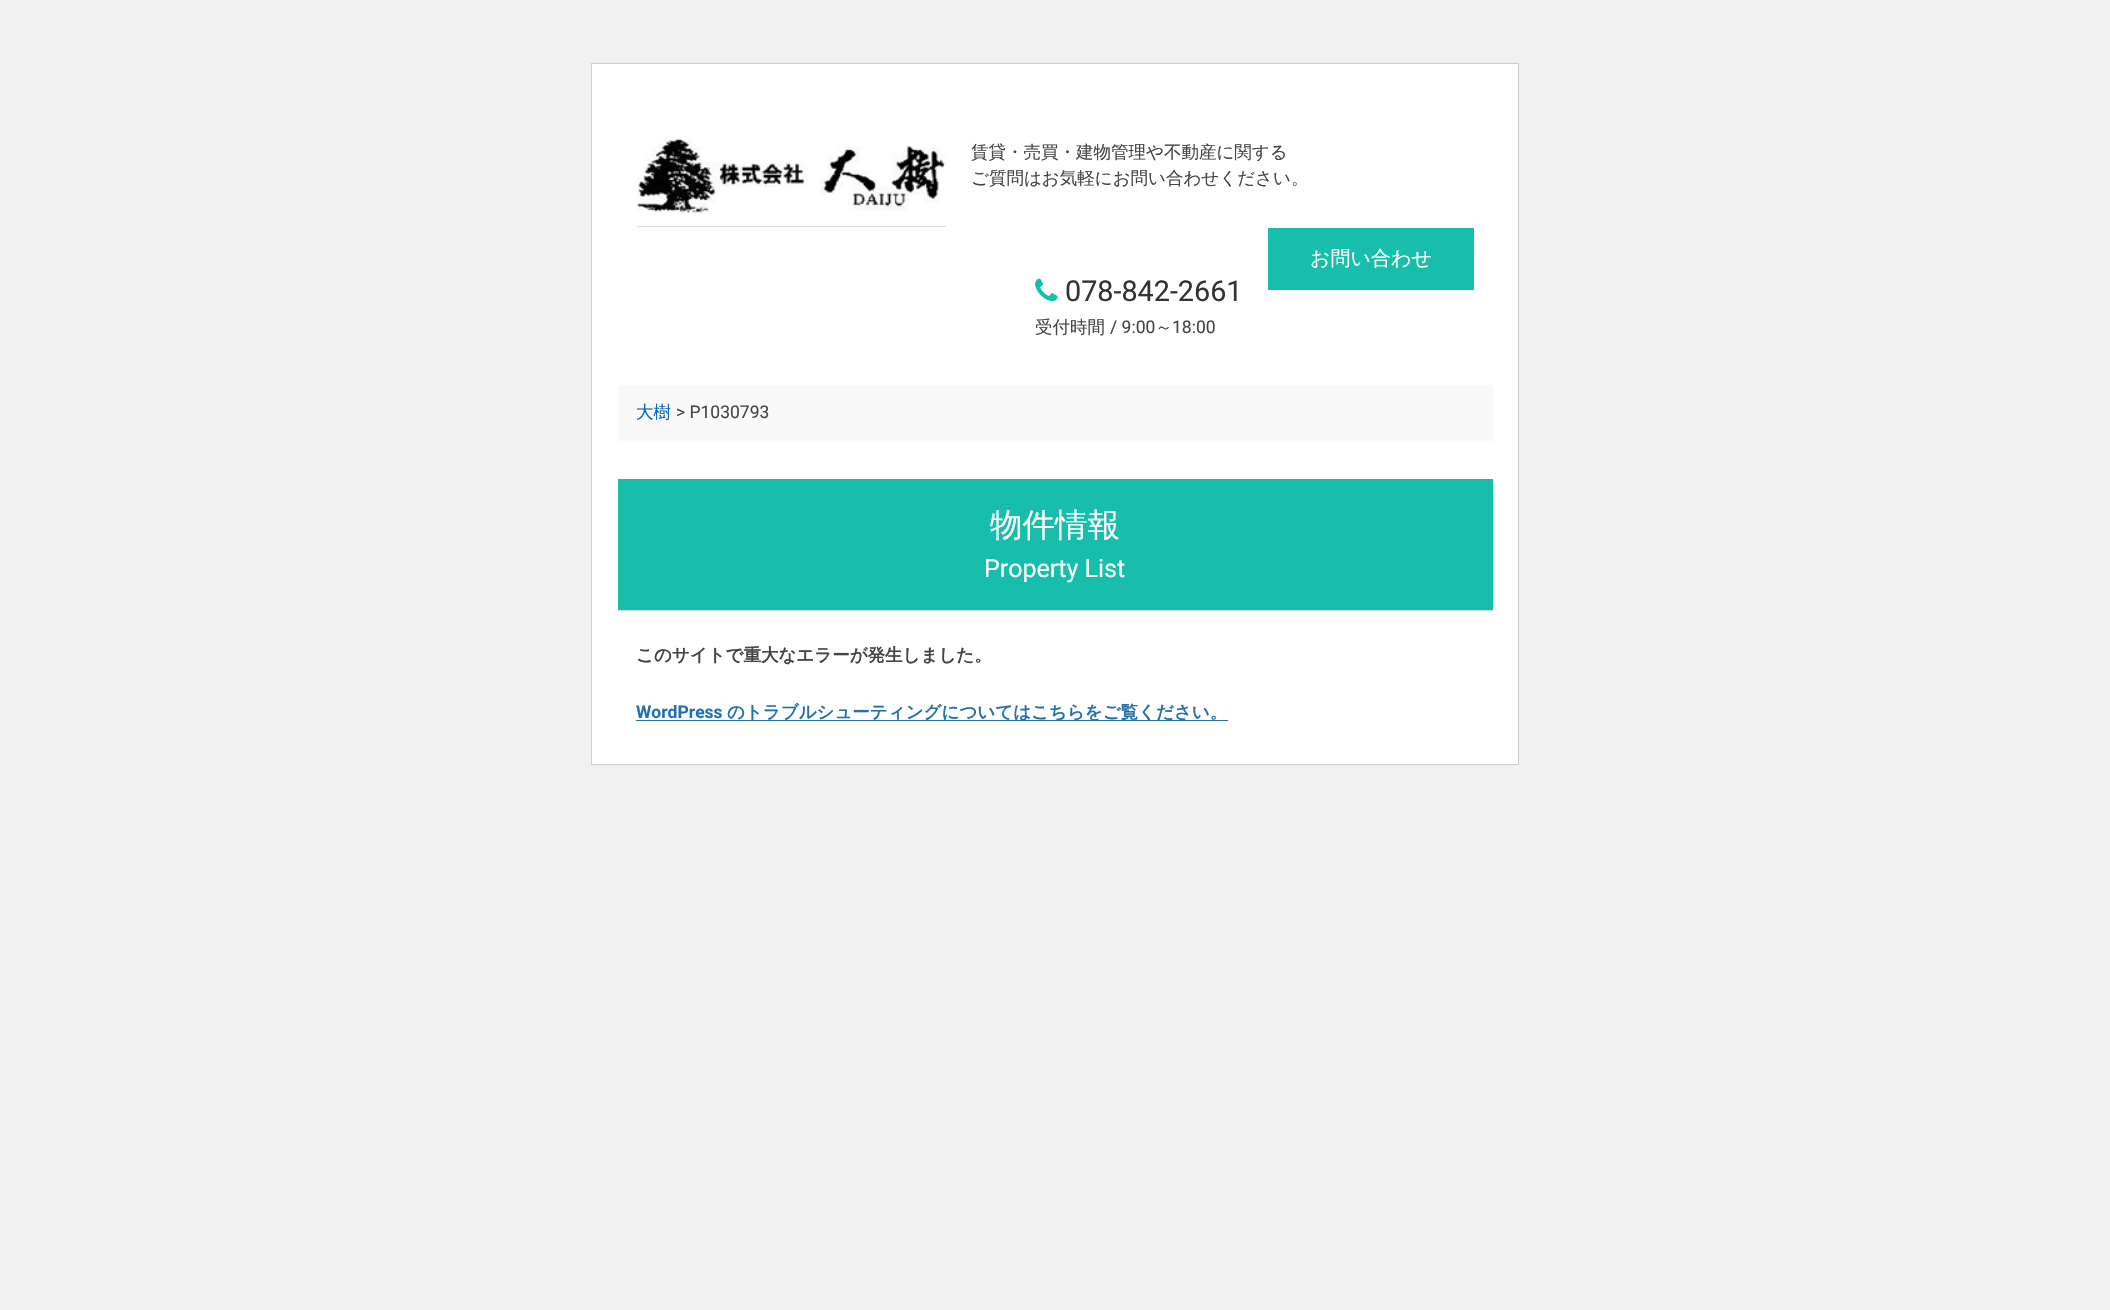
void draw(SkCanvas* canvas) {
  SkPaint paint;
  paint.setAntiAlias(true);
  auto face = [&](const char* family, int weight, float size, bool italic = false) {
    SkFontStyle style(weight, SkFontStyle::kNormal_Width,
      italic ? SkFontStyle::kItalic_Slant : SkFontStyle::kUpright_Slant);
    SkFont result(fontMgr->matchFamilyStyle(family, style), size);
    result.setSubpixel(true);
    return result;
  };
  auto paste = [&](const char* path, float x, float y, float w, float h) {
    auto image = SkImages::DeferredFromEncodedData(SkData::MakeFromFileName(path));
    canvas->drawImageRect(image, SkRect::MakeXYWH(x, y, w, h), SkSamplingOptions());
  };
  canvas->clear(0xfff1f1f1);
  paint.setColor(0xffffffff);
  canvas->drawRect(SkRect::MakeXYWH(591.5f, 63.5f, 927, 701), paint);
  paint.setStroke(true);
  paint.setStrokeWidth(1);
  paint.setColor(0xffccd0d4);
  canvas->drawRect(SkRect::MakeXYWH(591.5f, 63.5f, 927, 701), paint);
  paint.setStroke(false);
  paint.setColor(0xffdadada);
  canvas->drawRect(SkRect::MakeXYWH(636, 226, 310, 1), paint);
  paste("img/1.png", 636, 138, 310, 76);
  paint.setColor(0xff17beac);
  canvas->drawRect(SkRect::MakeXYWH(1268, 228, 206, 62), paint);
  paste("img/2.png", 1035, 278, 23, 24);
  {
    const struct { float x, y, w, h; SkColor color; } items[] = {
      {618, 385, 875, 56, 0xfff9f9f9},
      {618, 479, 875, 131, 0xff17beac},
      {618, 610, 875, 1, 0xffdadada},
      {636, 720, 592, 1, 0xff2271b1},
    };
    for (auto [x, y, w, h, color] : items) {
      paint.setColor(color);
      canvas->drawRect(SkRect::MakeXYWH(x, y, w, h), paint);
    }
  }
  auto f0 = face("WenQuanYi Zen Hei", 500, 17.5f);
  paint.setColor(0xff444444);
  canvas->drawString("賃貸・売買・建物管理や不動産に関する", 971, 158, f0, paint);
  canvas->drawString("ご質問はお気軽にお問い合わせください。", 971, 184, f0, paint);
  auto f1 = face("WenQuanYi Zen Hei", 500, 20);
  paint.setColor(0xffffffff);
  canvas->drawString("お問い合わせ", 1310, 265, f1, paint);
  auto f2 = face("Roboto", 400, 28.75f);
  paint.setColor(0xff333333);
  canvas->drawString("078-842-2661", 1065, 301, f2, paint);
  paint.setColor(0xff444444);
  canvas->drawString("受付時間", 1035, 333, f0, paint);
  auto f3 = face("Roboto", 400, 17.5f);
  canvas->drawString("/ 9:00", 1110, 333, f3, paint);
  canvas->drawString("～", 1155, 333, f0, paint);
  canvas->drawString("18:00", 1172, 333, f3, paint);
  paint.setColor(0xff0066b7);
  canvas->drawString("大樹", 636, 418, f0, paint);
  paint.setColor(0xff444444);
  canvas->drawString("> P1030793", 676, 418, f3, paint);
  auto f4 = face("WenQuanYi Zen Hei", 500, 32.5f);
  paint.setColor(0xffffffff);
  canvas->drawString("物件情報", 990, 536, f4, paint);
  auto f5 = face("Roboto", 400, 25);
  canvas->drawString("Property List", 984, 577, f5, paint);
  auto f6 = face("WenQuanYi Zen Hei", 700, 17.5f);
  paint.setColor(0xff444444);
  canvas->drawString("このサイトで重大なエラーが発生しました。", 636, 661, f6, paint);
  auto f7 = face("Roboto", 700, 17.5f);
  paint.setColor(0xff2271b1);
  canvas->drawString("WordPress", 636, 718, f7, paint);
  canvas->drawString("のトラブルシューティングについてはこちらをご覧ください。", 727, 718, f6, paint);
}
